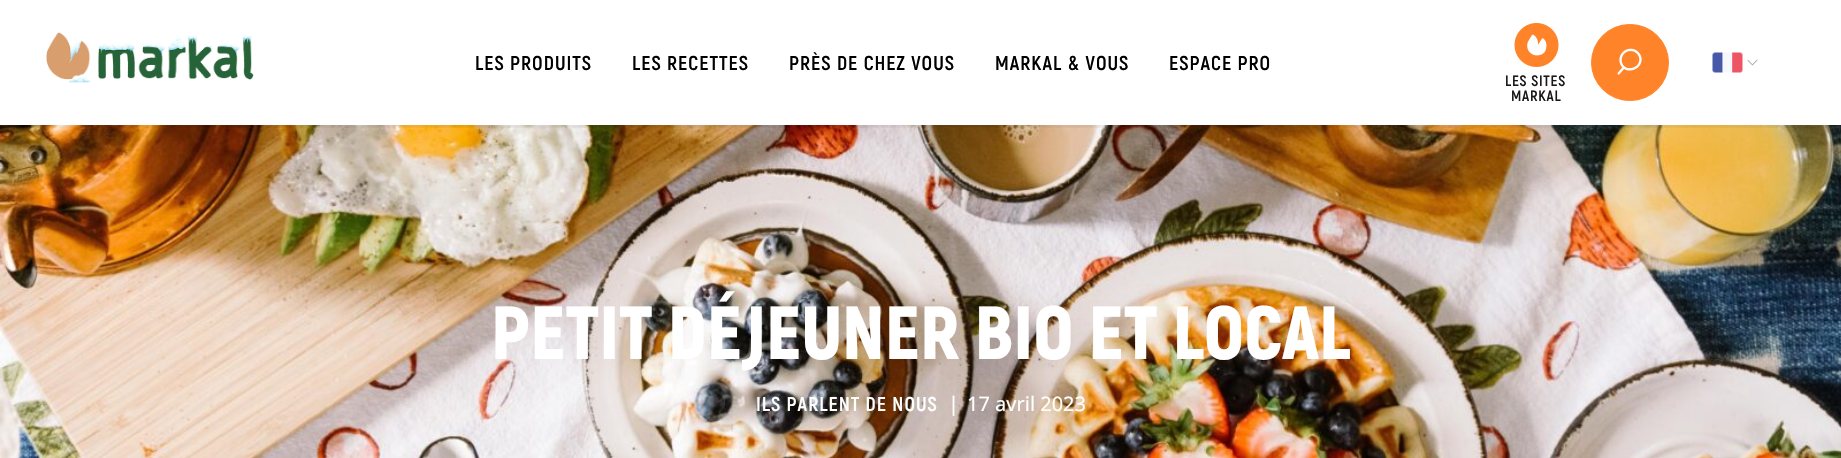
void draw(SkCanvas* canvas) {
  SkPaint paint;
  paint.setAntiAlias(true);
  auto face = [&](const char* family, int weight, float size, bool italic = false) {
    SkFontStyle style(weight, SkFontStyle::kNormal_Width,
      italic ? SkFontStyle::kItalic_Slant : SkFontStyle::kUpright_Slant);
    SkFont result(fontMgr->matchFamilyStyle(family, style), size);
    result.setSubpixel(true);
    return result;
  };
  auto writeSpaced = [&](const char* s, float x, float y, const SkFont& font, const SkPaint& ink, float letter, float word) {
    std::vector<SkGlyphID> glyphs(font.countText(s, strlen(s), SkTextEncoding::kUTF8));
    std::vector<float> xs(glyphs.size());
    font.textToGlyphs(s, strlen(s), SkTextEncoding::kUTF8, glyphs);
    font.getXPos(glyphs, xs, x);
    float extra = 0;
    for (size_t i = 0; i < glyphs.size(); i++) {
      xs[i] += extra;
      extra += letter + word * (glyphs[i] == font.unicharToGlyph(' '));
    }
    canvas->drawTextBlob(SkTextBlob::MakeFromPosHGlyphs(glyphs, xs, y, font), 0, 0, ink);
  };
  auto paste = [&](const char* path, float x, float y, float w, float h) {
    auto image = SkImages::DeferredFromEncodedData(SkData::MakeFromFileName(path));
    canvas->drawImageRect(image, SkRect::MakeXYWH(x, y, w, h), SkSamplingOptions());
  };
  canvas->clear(0xffffffff);
  paste("img/6.png", 0, 125, 1841, 333);
  canvas->save();
  canvas->clipRect(SkRect::MakeXYWH(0, 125, 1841, 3));
  paint.setColor(0x0d000000);
  paint.setMaskFilter(SkMaskFilter::MakeBlur(kNormal_SkBlurStyle, 1));
  canvas->drawRect(SkRect::MakeXYWH(0, 3, 1841, 125), paint);
  paint.setMaskFilter(nullptr);
  canvas->restore();
  paste("img/1.png", 46, 32, 208, 51);
  paint.setColor(0xffff8329);
  canvas->drawRoundRect(SkRect::MakeXYWH(1591.5f, 24.5f, 77, 76), 38, 38, paint);
  paint.setStroke(true);
  paint.setStrokeWidth(1);
  canvas->drawRoundRect(SkRect::MakeXYWH(1591.5f, 24.5f, 77, 76), 38, 38, paint);
  paste("img/2.png", 1617, 48, 25, 27);
  paste("img/3.png", 1712, 52, 31, 21);
  paste("img/4.png", 1747, 59, 11, 7);
  paste("img/5.png", 1514, 23, 45, 44);
  auto f0 = face("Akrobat", 700, 20);
  paint.setStroke(false);
  paint.setColor(0xff000000);
  {
    const struct { const char* s; float x, y; } items[] = {
      {"LES PRODUITS", 475, 70},
      {"LES RECETTES", 632, 70},
      {"PRÈS DE CHEZ VOUS", 789, 70},
      {"MARKAL & VOUS", 995, 70},
      {"ESPACE PRO", 1169, 70},
    };
    for (auto [s, x, y] : items) {
      writeSpaced(s, x, y, f0, paint, 1, 0);
    }
  }
  auto f1 = face("Akrobat", 700, 15);
  paint.setColor(0xff1a1817);
  writeSpaced("LES SITES", 1505, 86, f1, paint, 0.75f, 0);
  writeSpaced("MARKAL", 1511, 101, f1, paint, 0.75f, 0);
  auto f2 = face("Akrobat", 900, 75);
  paint.setColor(0xffffffff);
  canvas->drawString("PETIT DÉJEUNER BIO ET LOCAL", 491, 359, f2, paint);
  writeSpaced("ILS PARLENT DE NOUS", 756, 411, f0, paint, 1, 0);
  auto f3 = face("Noto Sans", 400, 20);
  canvas->drawString("|", 948, 411, f3, paint);
  canvas->drawString("17 avril 2023", 967, 411, f3, paint);
}
